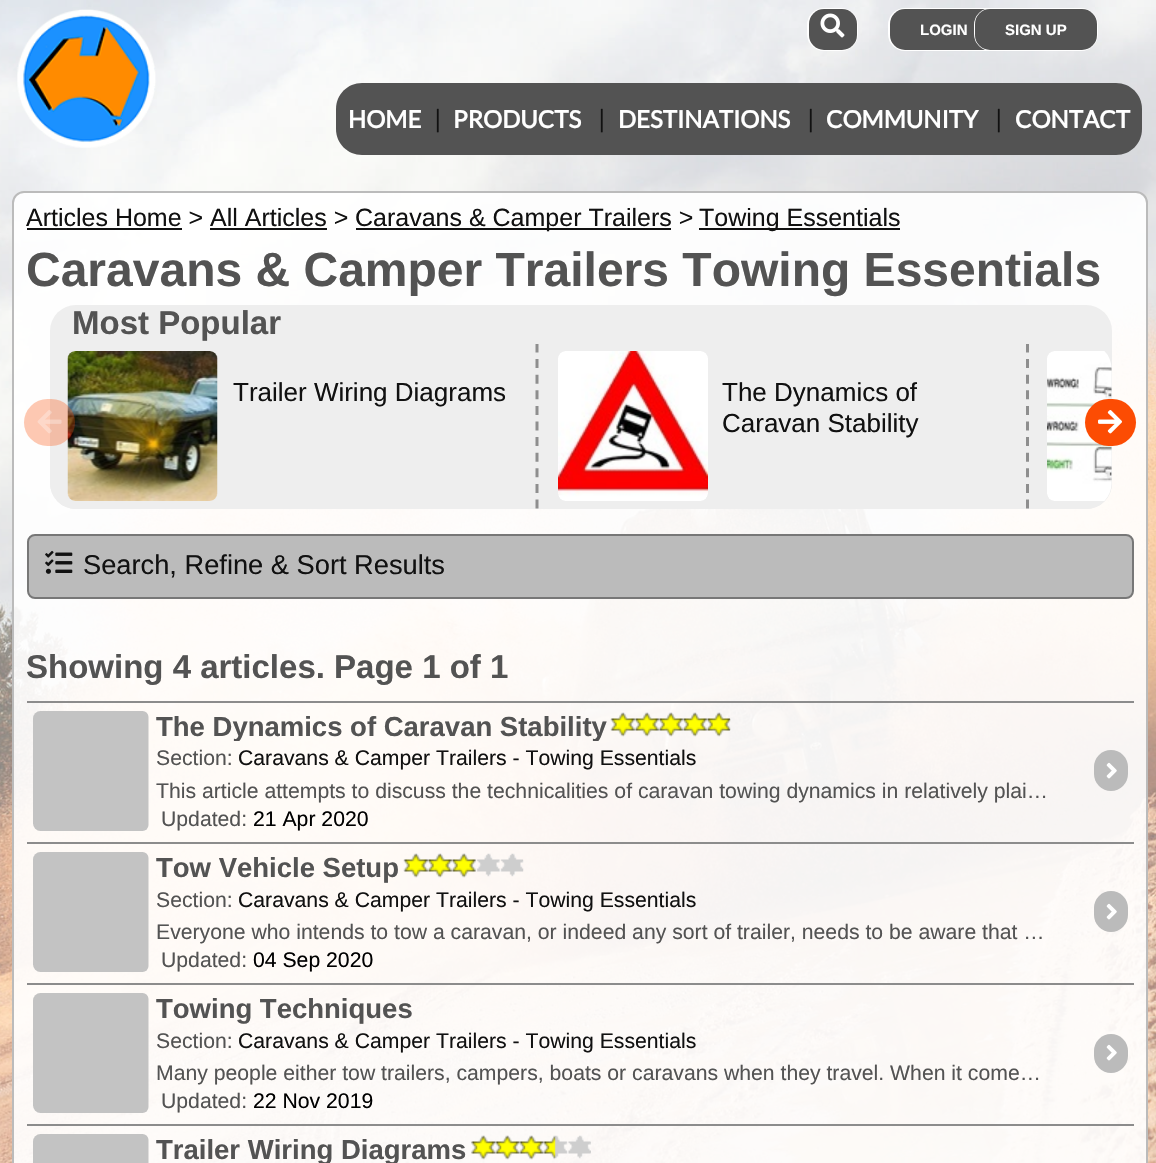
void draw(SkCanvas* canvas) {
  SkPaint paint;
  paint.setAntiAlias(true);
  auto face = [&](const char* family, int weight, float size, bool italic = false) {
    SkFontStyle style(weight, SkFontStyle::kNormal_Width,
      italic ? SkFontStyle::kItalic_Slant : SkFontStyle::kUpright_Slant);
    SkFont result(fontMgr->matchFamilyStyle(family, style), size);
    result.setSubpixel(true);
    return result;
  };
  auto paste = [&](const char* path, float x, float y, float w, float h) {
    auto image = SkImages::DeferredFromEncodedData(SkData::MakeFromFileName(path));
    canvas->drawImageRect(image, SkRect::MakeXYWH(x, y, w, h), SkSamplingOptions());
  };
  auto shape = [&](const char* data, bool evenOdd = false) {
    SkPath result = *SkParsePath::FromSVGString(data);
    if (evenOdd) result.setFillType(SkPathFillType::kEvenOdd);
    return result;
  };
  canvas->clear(0xffffffff);
  paste("img/1.png", 0, 0, 1156, 1163);
  paste("img/2.png", 17, 9, 139, 139);
  paint.setStroke(true);
  paint.setStrokeWidth(2);
  paint.setColor(0xffffffff);
  canvas->drawRoundRect(SkRect::MakeXYWH(808, 9, 49, 41), 16, 16, paint);
  paint.setStroke(false);
  paint.setColor(0xff535353);
  canvas->drawRoundRect(SkRect::MakeXYWH(809, 9, 48, 41), 15, 15, paint);
  paste("img/3.png", 820, 13, 25, 25);
  paint.setStroke(true);
  paint.setColor(0xffffffff);
  canvas->drawRoundRect(SkRect::MakeXYWH(889, 9, 132, 41), 16, 16, paint);
  paint.setStroke(false);
  paint.setColor(0xff535353);
  canvas->drawRoundRect(SkRect::MakeXYWH(890, 9, 130, 41), 15, 15, paint);
  paint.setStroke(true);
  paint.setColor(0xffffffff);
  canvas->drawRoundRect(SkRect::MakeXYWH(975, 9, 122, 41), 16, 16, paint);
  paint.setStroke(false);
  paint.setColor(0xff535353);
  canvas->drawRoundRect(SkRect::MakeXYWH(975, 9, 122, 41), 15, 15, paint);
  canvas->drawPath(shape("M362 83H441V155H362C347.5 155 336 143.5 336 129V109C336 94.5 347.5 83 362 83Z"), paint);
  canvas->drawRect(SkRect::MakeXYWH(441, 83, 561, 72), paint);
  canvas->drawPath(shape("M1002 83H1116C1130.5 83 1142 94.5 1142 109V129C1142 143.5 1130.5 155 1116 155H1002Z"), paint);
  paint.setColor(0xe6ffffff);
  canvas->drawRoundRect(SkRect::MakeXYWH(13, 192, 1134, 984), 11, 11, paint);
  paint.setStroke(true);
  paint.setColor(0xffbbbbbb);
  canvas->drawRoundRect(SkRect::MakeXYWH(13, 192, 1134, 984), 11, 11, paint);
  paint.setStroke(false);
  {
    const struct { float x, y, w, h; SkColor color; } items[] = {
      {27, 228, 155, 2, 0xff111111},
      {356, 228, 315, 2, 0xff111111},
      {699, 228, 201, 2, 0xff111111},
      {210, 228, 117, 2, 0xff111111},
    };
    for (auto [x, y, w, h, color] : items) {
      paint.setColor(color);
      canvas->drawRect(SkRect::MakeXYWH(x, y, w, h), paint);
    }
  }
  paint.setColor(0xffeeeeee);
  canvas->drawRoundRect(SkRect::MakeXYWH(50, 305, 1062, 204), 26, 26, paint);
  canvas->drawRoundRect(SkRect::MakeXYWH(50, 344, 1062, 165), 26, 26, paint);
  paste("img/5.png", 67, 351, 151, 150);
  paint.setColor(0x4dfc4c03);
  canvas->drawRoundRect(SkRect::MakeXYWH(24, 399, 51, 47), 23.5f, 23.5f, paint);
  paste("img/4.png", 37, 410, 25, 24);
  canvas->save();
  canvas->clipPath(shape("M76 344H1086C1100.5 344 1112 355.5 1112 370V483C1112 497.5 1100.5 509 1086 509H76C61.5 509 50 497.5 50 483V370C50 355.5 61.5 344 76 344Z"), true);
  paint.setStroke(true);
  paint.setStrokeWidth(3);
  paint.setColor(0xff8e8e8e);
  paint.setPathEffect(SkDashPathEffect::Make({{9, 6.6f}}, 0));
  canvas->drawPath(shape("M537 343.5V508.5"), paint);
  paint.setPathEffect(nullptr);
  paint.setPathEffect(SkDashPathEffect::Make({{9, 6.6f}}, 0));
  canvas->drawPath(shape("M1027.5 343.5V508.5"), paint);
  paint.setPathEffect(nullptr);
  canvas->restore();
  paste("img/6.png", 558, 351, 150, 150);
  paste("img/7.png", 1047, 351, 65, 150);
  paint.setStroke(false);
  paint.setColor(0xfffc4c03);
  canvas->drawRoundRect(SkRect::MakeXYWH(1085, 399, 51, 47), 23.5f, 23.5f, paint);
  paste("img/8.png", 1098, 410, 24, 24);
  paint.setColor(0xffbbbbbb);
  canvas->drawRoundRect(SkRect::MakeXYWH(28, 535, 1105, 63), 7, 7, paint);
  paint.setStroke(true);
  paint.setStrokeWidth(2);
  paint.setColor(0xff777777);
  canvas->drawRoundRect(SkRect::MakeXYWH(28, 535, 1105, 63), 7, 7, paint);
  paste("img/9.png", 45, 550, 28, 24);
  paint.setStroke(false);
  paint.setColor(0xff8c8c8c);
  canvas->drawRect(SkRect::MakeXYWH(27, 701, 1107, 2), paint);
  canvas->drawRect(SkRect::MakeXYWH(27, 842, 1107, 2), paint);
  paste("img/10.png", 33, 711, 116, 120);
  paste("img/11.png", 610, 712, 121, 25);
  paint.setColor(0xffbbbbbb);
  canvas->drawRoundRect(SkRect::MakeXYWH(1094, 750, 34, 41), 17, 17, paint);
  paste("img/12.png", 1106, 762, 11, 17);
  paint.setColor(0xff8c8c8c);
  canvas->drawRect(SkRect::MakeXYWH(27, 983, 1107, 2), paint);
  paste("img/13.png", 33, 852, 116, 120);
  paste("img/14.png", 403, 853, 121, 25);
  paint.setColor(0xffbbbbbb);
  canvas->drawRoundRect(SkRect::MakeXYWH(1094, 891, 34, 41), 17, 17, paint);
  paste("img/12.png", 1106, 903, 11, 17);
  paint.setColor(0xff8c8c8c);
  canvas->drawRect(SkRect::MakeXYWH(27, 1124, 1107, 2), paint);
  paste("img/15.png", 33, 993, 116, 120);
  paint.setColor(0xffbbbbbb);
  canvas->drawRoundRect(SkRect::MakeXYWH(1094, 1034, 34, 39), 17, 17, paint);
  paste("img/12.png", 1106, 1044, 11, 17);
  paste("img/16.png", 33, 1134, 116, 29);
  paste("img/17.png", 471, 1135, 120, 25);
  auto f0 = face("Liberation Sans", 700, 15);
  paint.setColor(0xffffffff);
  canvas->drawString("LOGIN", 920, 35, f0, paint);
  canvas->drawString("SIGN UP", 1005, 35, f0, paint);
  auto f1 = face("Lato", 700, 24);
  canvas->drawString("HOME", 348, 128, f1, paint);
  auto f2 = face("Lato", 400, 25);
  paint.setColor(0xff111111);
  canvas->drawString("|", 434, 128, f2, paint);
  paint.setColor(0xffffffff);
  canvas->drawString("PRODUCTS", 453, 128, f1, paint);
  paint.setColor(0xff111111);
  canvas->drawString("|", 598, 128, f2, paint);
  paint.setColor(0xffffffff);
  canvas->drawString("DESTINATIONS", 618, 128, f1, paint);
  paint.setColor(0xff111111);
  canvas->drawString("|", 807, 128, f2, paint);
  paint.setColor(0xffffffff);
  canvas->drawString("COMMUNITY", 826, 128, f1, paint);
  paint.setColor(0xff111111);
  canvas->drawString("|", 995, 128, f2, paint);
  paint.setColor(0xffffffff);
  canvas->drawString("CONTACT", 1015, 128, f1, paint);
  auto f3 = face("Liberation Sans", 400, 25);
  paint.setColor(0xff111111);
  {
    const struct { const char* s; float x, y; } items[] = {
      {"Articles Home > All Articles >", 26, 226},
      {"Caravans & Camper Trailers >", 355, 226},
      {"Towing Essentials", 699, 226},
    };
    for (auto [s, x, y] : items) {
      canvas->drawString(s, x, y, f3, paint);
    }
  }
  auto f4 = face("Liberation Sans", 700, 48);
  paint.setColor(0xff535353);
  canvas->drawString("Caravans & Camper Trailers Towing Essentials", 26, 286, f4, paint);
  auto f5 = face("Liberation Sans", 700, 33);
  canvas->drawString("Most Popular", 72, 334, f5, paint);
  auto f6 = face("Liberation Sans", 400, 26);
  paint.setColor(0xff111111);
  {
    const struct { const char* s; float x, y; } items[] = {
      {"Trailer Wiring Diagrams", 233, 401},
      {"The Dynamics of", 722, 401},
      {"Caravan Stability", 722, 432},
    };
    for (auto [s, x, y] : items) {
      canvas->drawString(s, x, y, f6, paint);
    }
  }
  auto f7 = face("Liberation Sans", 400, 27.25f);
  canvas->drawString("Search, Refine & Sort Results", 83, 574, f7, paint);
  paint.setColor(0xff535353);
  canvas->drawString("Showing 4 articles. Page 1 of 1", 26, 678, f5, paint);
  canvas->save();
  canvas->clipRect(SkRect::MakeXYWH(156, 713, 887, 28));
  auto f8 = face("Liberation Sans", 700, 27.5f);
  canvas->drawString("The Dynamics of Caravan Stability", 156, 736, f8, paint);
  canvas->restore();
  auto f9 = face("Liberation Sans", 400, 21.2f);
  canvas->drawString("Section:", 156, 765, f9, paint);
  paint.setColor(0xff111111);
  canvas->drawString("Caravans & Camper Trailers - Towing Essentials", 238, 765, f9, paint);
  paint.setColor(0xff535353);
  canvas->drawString("This article attempts to discuss the technicalities of caravan towing dynamics in relatively plai…", 156, 798, f9, paint);
  canvas->drawString("Updated:", 161, 826, f9, paint);
  paint.setColor(0xff000000);
  canvas->drawString("21 Apr 2020", 253, 826, f9, paint);
  paint.setColor(0xff535353);
  canvas->drawString("Tow Vehicle Setup", 156, 877, f8, paint);
  canvas->drawString("Section:", 156, 907, f9, paint);
  paint.setColor(0xff111111);
  canvas->drawString("Caravans & Camper Trailers - Towing Essentials", 238, 907, f9, paint);
  paint.setColor(0xff535353);
  canvas->drawString("Everyone who intends to tow a caravan, or indeed any sort of trailer, needs to be aware that …", 156, 939, f9, paint);
  canvas->drawString("Updated:", 161, 967, f9, paint);
  paint.setColor(0xff000000);
  canvas->drawString("04 Sep 2020", 253, 967, f9, paint);
  paint.setColor(0xff535353);
  canvas->drawString("Towing Techniques", 156, 1018, f8, paint);
  canvas->drawString("Section:", 156, 1048, f9, paint);
  paint.setColor(0xff111111);
  canvas->drawString("Caravans & Camper Trailers - Towing Essentials", 238, 1048, f9, paint);
  paint.setColor(0xff535353);
  canvas->drawString("Many people either tow trailers, campers, boats or caravans when they travel. When it come…", 156, 1080, f9, paint);
  canvas->drawString("Updated:", 161, 1108, f9, paint);
  paint.setColor(0xff000000);
  canvas->drawString("22 Nov 2019", 253, 1108, f9, paint);
  paint.setColor(0xff535353);
  canvas->drawString("Trailer Wiring Diagrams", 156, 1159, f8, paint);
}
